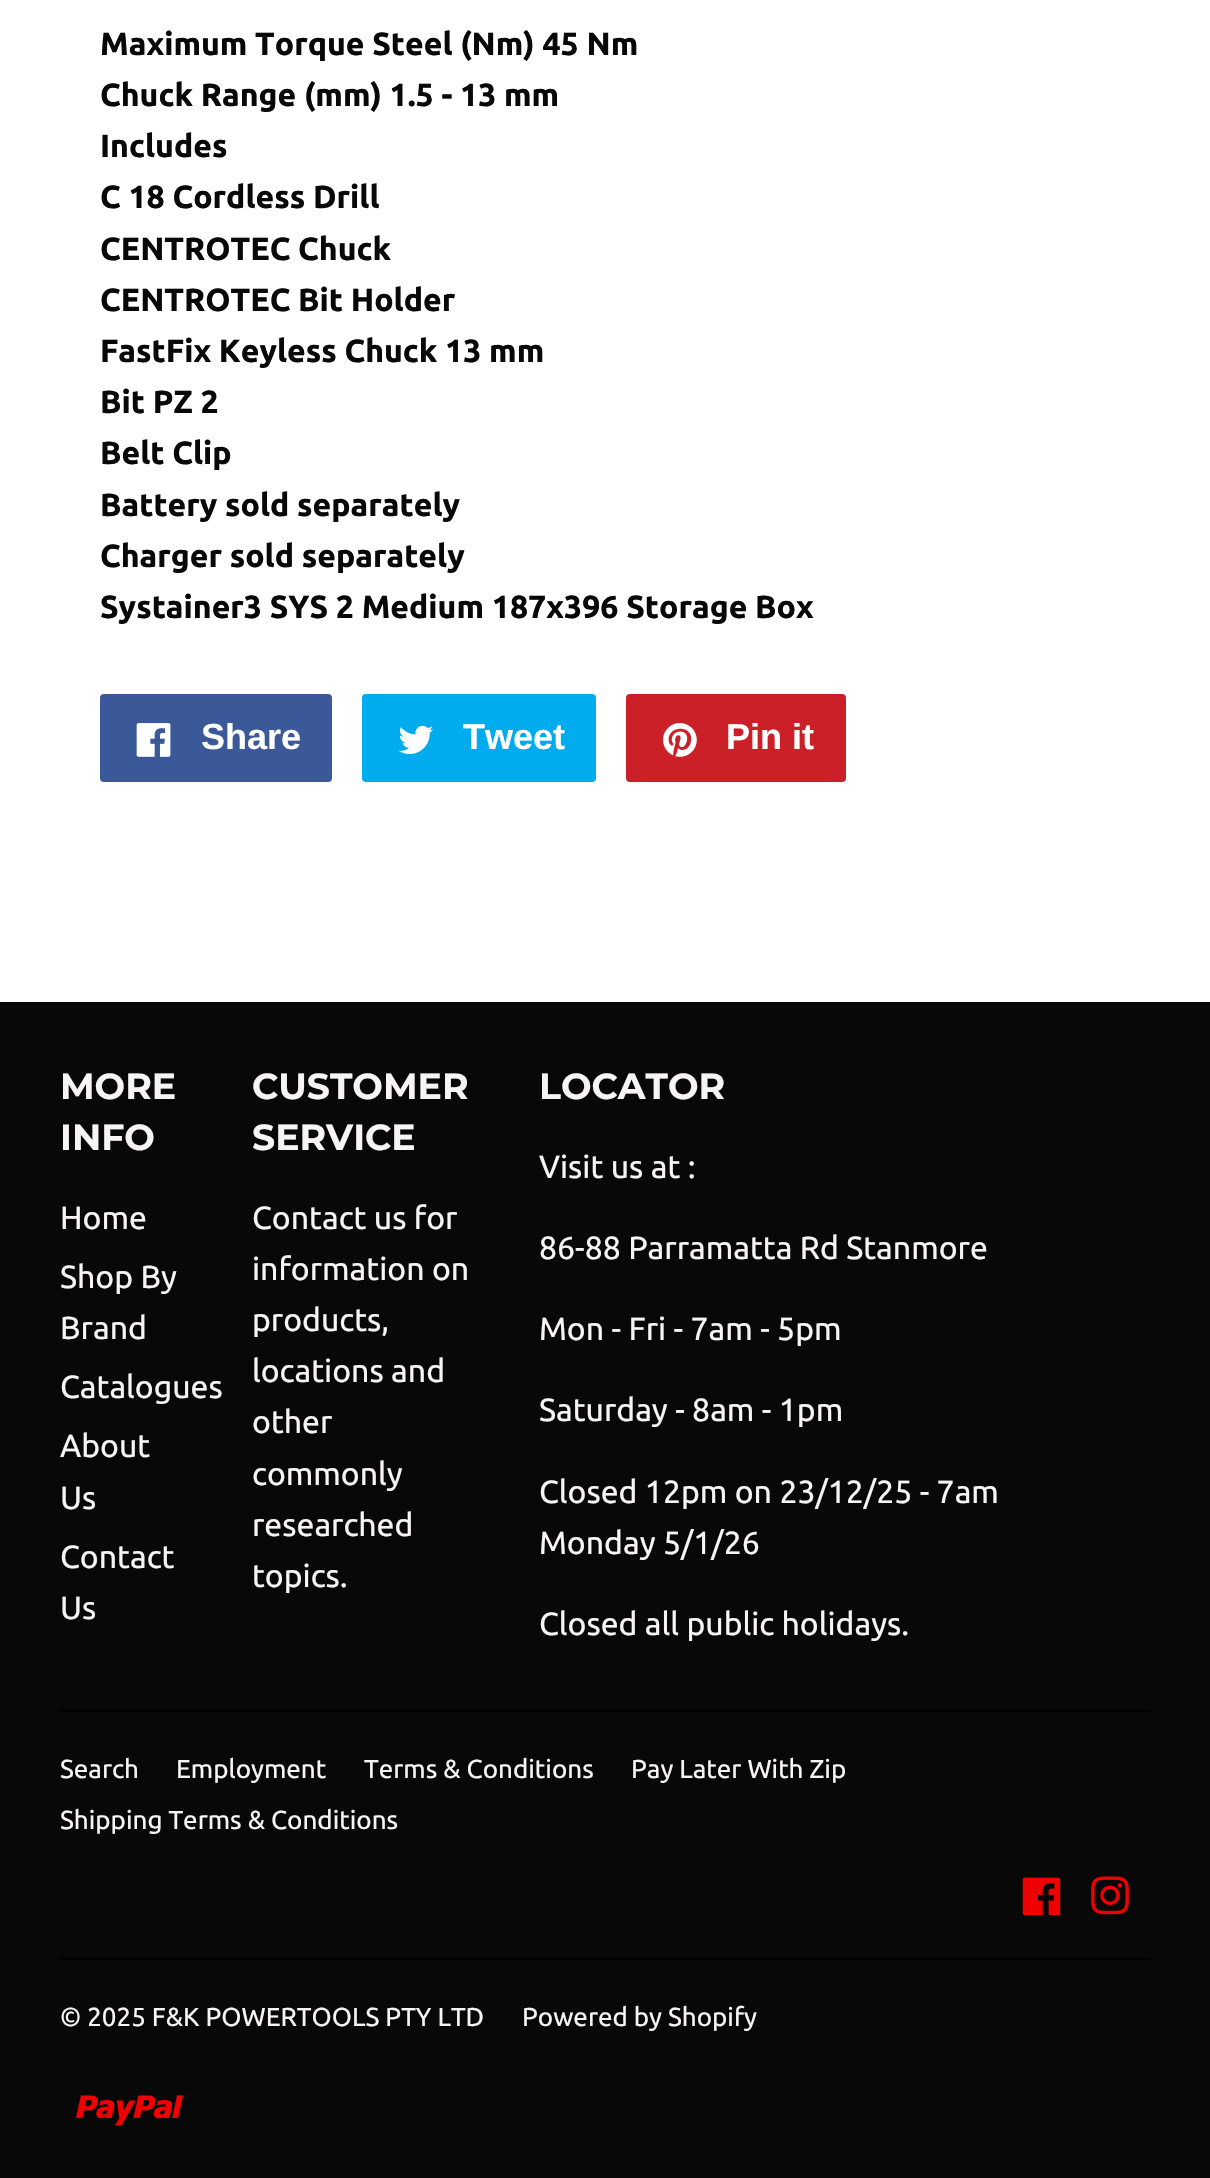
void draw(SkCanvas* canvas) {
  SkPaint paint;
  paint.setAntiAlias(true);
  auto face = [&](const char* family, int weight, float size, bool italic = false) {
    SkFontStyle style(weight, SkFontStyle::kNormal_Width,
      italic ? SkFontStyle::kItalic_Slant : SkFontStyle::kUpright_Slant);
    SkFont result(fontMgr->matchFamilyStyle(family, style), size);
    result.setSubpixel(true);
    return result;
  };
  auto paste = [&](const char* path, float x, float y, float w, float h) {
    auto image = SkImages::DeferredFromEncodedData(SkData::MakeFromFileName(path));
    canvas->drawImageRect(image, SkRect::MakeXYWH(x, y, w, h), SkSamplingOptions());
  };
  canvas->clear(0xffffffff);
  paint.setColor(0xff3b5998);
  canvas->drawRoundRect(SkRect::MakeXYWH(100, 694, 232, 88), 4, 4, paint);
  paste("img/1.png", 136, 723, 35, 34);
  paint.setColor(0xff00aced);
  canvas->drawRoundRect(SkRect::MakeXYWH(362, 694, 234, 88), 4, 4, paint);
  paste("img/2.png", 398, 725, 35, 29);
  paint.setColor(0xffcb2027);
  canvas->drawRoundRect(SkRect::MakeXYWH(626, 694, 220, 88), 4, 4, paint);
  paste("img/3.png", 663, 723, 34, 34);
  paint.setColor(0xff080808);
  canvas->drawRect(SkRect::MakeXYWH(0, 1002, 1210, 1176), paint);
  paint.setColor(0xff000000);
  canvas->drawRect(SkRect::MakeXYWH(60, 1710, 1090, 2), paint);
  paste("img/4.png", 1022, 1877, 39, 39);
  paste("img/5.png", 1091, 1876, 38, 39);
  canvas->drawRect(SkRect::MakeXYWH(60, 1958, 1090, 2), paint);
  paste("img/6.png", 76, 2095, 108, 31);
  auto f0 = face("Ubuntu", 700, 32);
  paint.setColor(0xff080808);
  {
    const struct { const char* s; float x, y; } items[] = {
      {"Maximum Torque Steel (Nm) 45 Nm", 100, 55},
      {"Chuck Range (mm) 1.5 - 13 mm", 100, 106},
      {"Includes", 100, 157},
      {"C 18 Cordless Drill", 100, 208},
      {"CENTROTEC Chuck", 100, 260},
      {"CENTROTEC Bit Holder", 100, 311},
      {"FastFix Keyless Chuck 13 mm", 100, 362},
      {"Bit PZ 2", 100, 413},
      {"Belt Clip", 100, 464},
      {"Battery sold separately", 100, 516},
      {"Charger sold separately", 100, 567},
      {"Systainer3 SYS 2 Medium 187x396 Storage Box", 100, 618},
    };
    for (auto [s, x, y] : items) {
      canvas->drawString(s, x, y, f0, paint);
    }
  }
  auto f1 = face("Liberation Sans", 700, 36);
  paint.setColor(0xffffffff);
  {
    const struct { const char* s; float x, y; } items[] = {
      {"Share", 201, 749},
      {"Tweet", 463, 749},
      {"Pin it", 726, 749},
    };
    for (auto [s, x, y] : items) {
      canvas->drawString(s, x, y, f1, paint);
    }
  }
  auto f2 = face("Montserrat", 100, 36.25f);
  paint.setColor(0xfff6f4f4);
  canvas->drawString("MORE", 60, 1099, f2, paint);
  canvas->drawString("INFO", 60, 1150, f2, paint);
  auto f3 = face("Ubuntu", 400, 32);
  {
    const struct { const char* s; float x, y; } items[] = {
      {"Home", 60, 1229},
      {"Shop By", 60, 1288},
      {"Brand", 60, 1339},
      {"Catalogues", 60, 1398},
      {"About", 60, 1457},
      {"Us", 60, 1509},
      {"Contact", 60, 1568},
      {"Us", 60, 1619},
    };
    for (auto [s, x, y] : items) {
      canvas->drawString(s, x, y, f3, paint);
    }
  }
  canvas->drawString("CUSTOMER", 252, 1099, f2, paint);
  canvas->drawString("SERVICE", 252, 1150, f2, paint);
  {
    const struct { const char* s; float x, y; } items[] = {
      {"Contact us for", 252, 1229},
      {"information on", 252, 1280},
      {"products,", 252, 1331},
      {"locations and", 252, 1382},
      {"other", 252, 1433},
      {"commonly", 252, 1485},
      {"researched", 252, 1536},
      {"topics.", 252, 1587},
    };
    for (auto [s, x, y] : items) {
      canvas->drawString(s, x, y, f3, paint);
    }
  }
  canvas->drawString("LOCATOR", 539, 1099, f2, paint);
  {
    const struct { const char* s; float x, y; } items[] = {
      {"Visit us at :", 539, 1178},
      {"86-88 Parramatta Rd Stanmore", 539, 1259},
      {"Mon - Fri - 7am - 5pm", 539, 1340},
      {"Saturday - 8am - 1pm", 539, 1421},
      {"Closed 12pm on 23/12/25 - 7am", 539, 1503},
      {"Monday 5/1/26", 539, 1554},
      {"Closed all public holidays.", 539, 1635},
    };
    for (auto [s, x, y] : items) {
      canvas->drawString(s, x, y, f3, paint);
    }
  }
  auto f4 = face("Ubuntu", 400, 26);
  {
    const struct { const char* s; float x, y; } items[] = {
      {"Search", 60, 1778},
      {"Employment", 176, 1778},
      {"Terms & Conditions", 364, 1778},
      {"Pay Later With Zip", 631, 1778},
      {"Shipping Terms & Conditions", 60, 1829},
      {"© 2025 F&K POWERTOOLS PTY LTD", 60, 2026},
      {"Powered by Shopify", 522, 2026},
    };
    for (auto [s, x, y] : items) {
      canvas->drawString(s, x, y, f4, paint);
    }
  }
}
